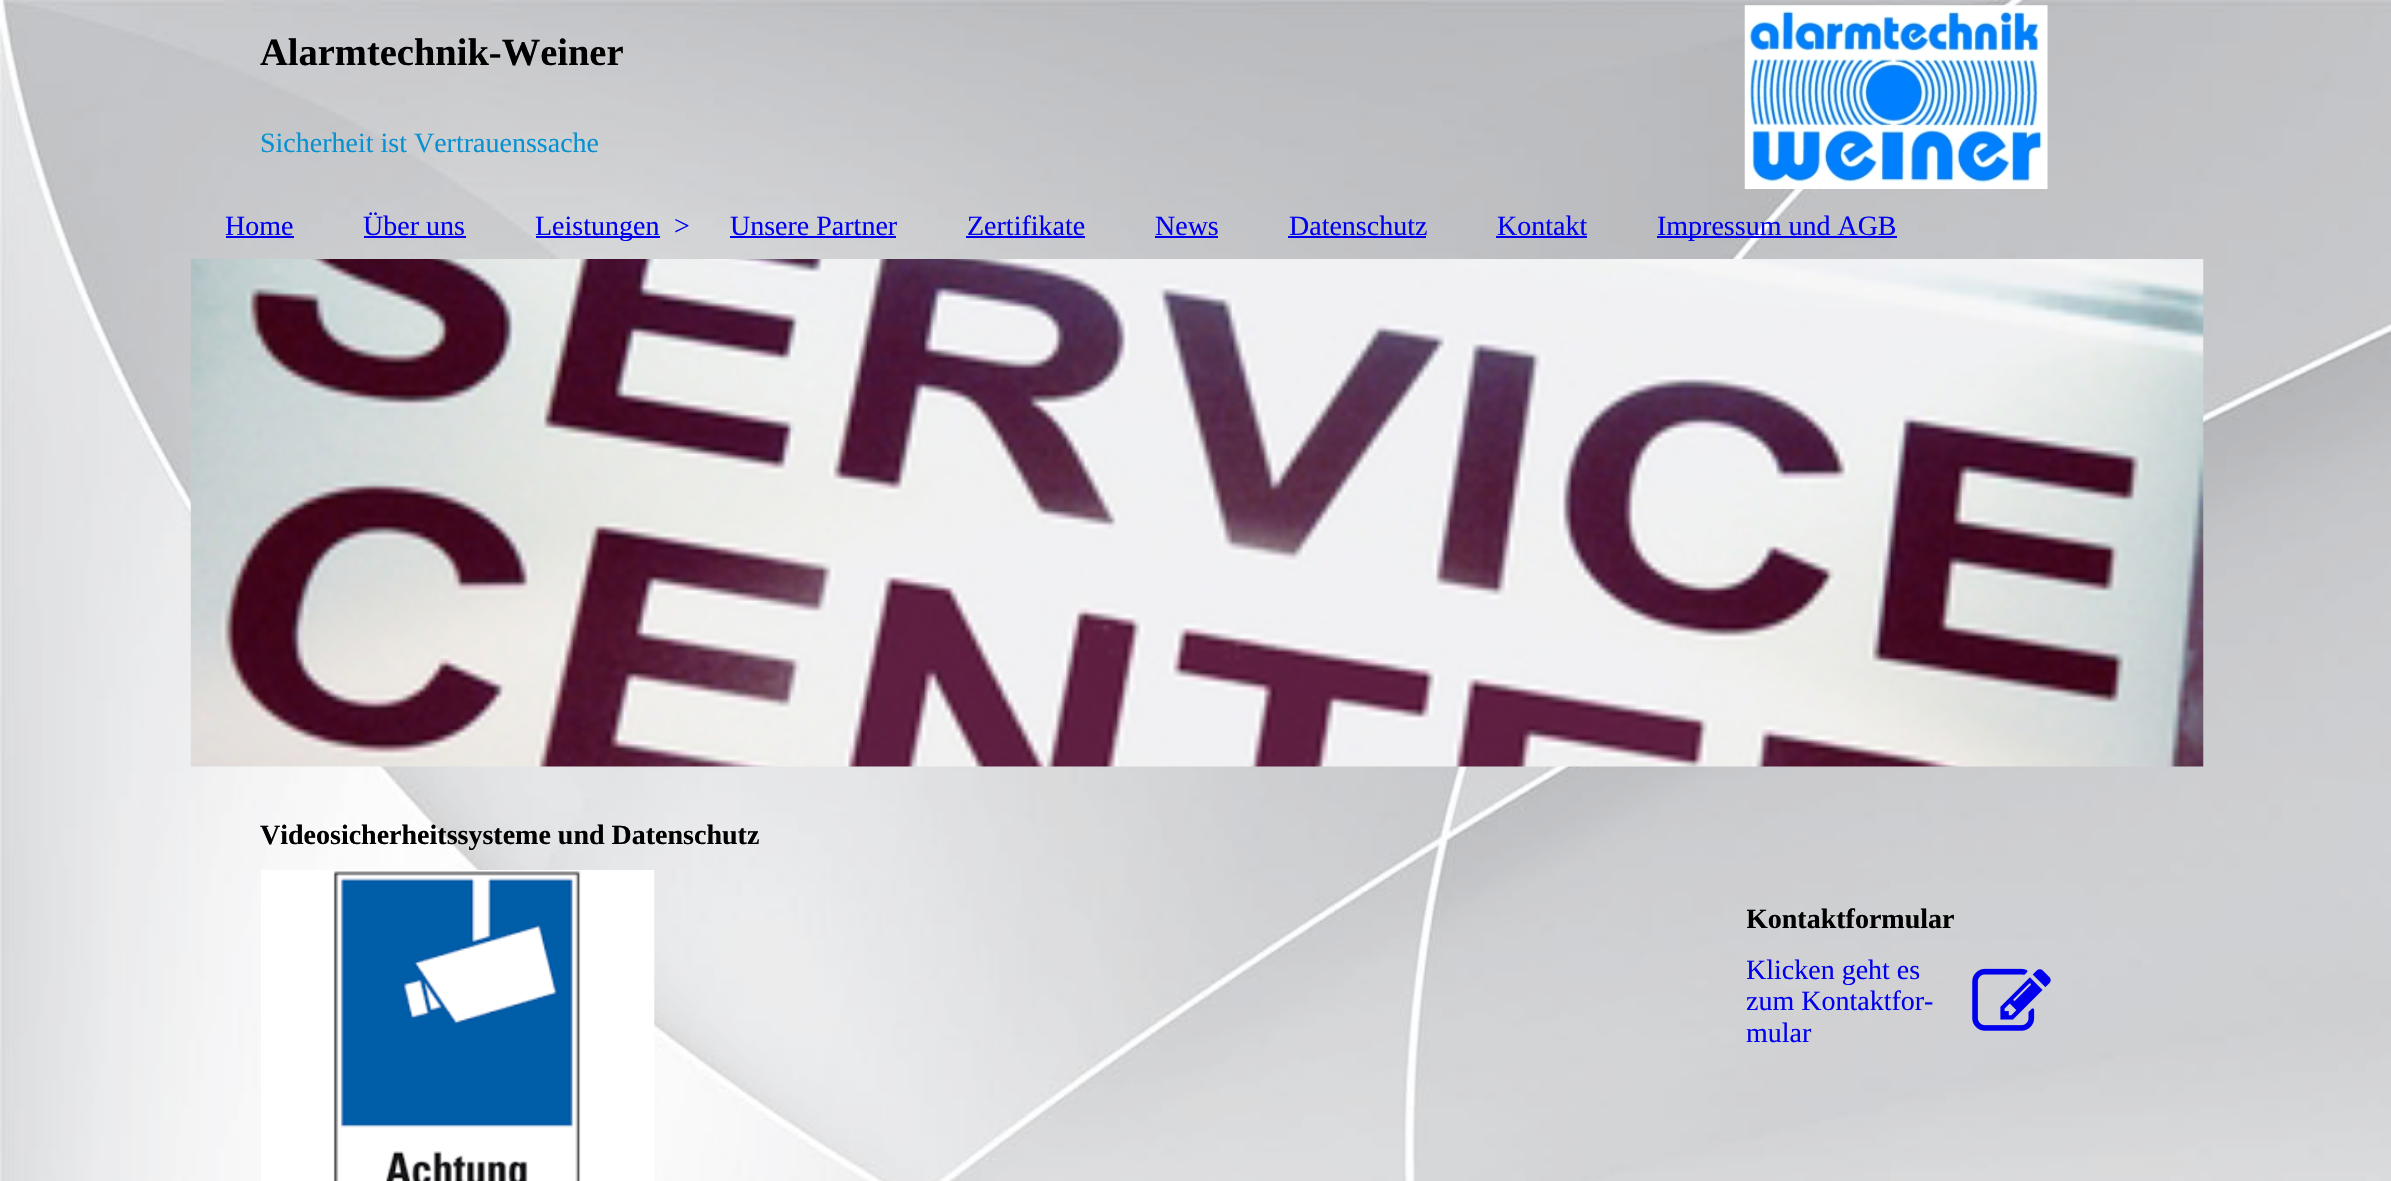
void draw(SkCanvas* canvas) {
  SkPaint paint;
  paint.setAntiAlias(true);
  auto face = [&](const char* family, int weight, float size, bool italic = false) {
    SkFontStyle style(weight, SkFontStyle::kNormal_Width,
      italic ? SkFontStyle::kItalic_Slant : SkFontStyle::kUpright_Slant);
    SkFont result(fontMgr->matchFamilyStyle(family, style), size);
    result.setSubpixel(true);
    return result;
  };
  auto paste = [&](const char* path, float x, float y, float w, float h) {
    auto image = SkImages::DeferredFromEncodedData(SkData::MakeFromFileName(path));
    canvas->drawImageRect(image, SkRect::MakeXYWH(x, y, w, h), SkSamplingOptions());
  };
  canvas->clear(0xffffffff);
  paste("img/1.png", 0, 0, 2391, 1181);
  paste("img/2.png", 1744, 5, 304, 184);
  {
    const struct { float x, y, w, h; SkColor color; } items[] = {
      {226, 236, 68, 2, 0xff0000ee},
      {364, 236, 102, 2, 0xff0000ee},
      {536, 236, 124, 2, 0xff0000ee},
      {730, 236, 166, 2, 0xff0000ee},
      {966, 236, 119, 2, 0xff0000ee},
      {1155, 236, 63, 2, 0xff0000ee},
      {1288, 236, 138, 2, 0xff0000ee},
      {1496, 236, 91, 2, 0xff0000ee},
      {1657, 236, 240, 2, 0xff0000ee},
    };
    for (auto [x, y, w, h, color] : items) {
      paint.setColor(color);
      canvas->drawRect(SkRect::MakeXYWH(x, y, w, h), paint);
    }
  }
  paste("img/3.png", 190, 259, 2014, 508);
  paste("img/4.png", 261, 870, 394, 311);
  paste("img/5.png", 1972, 968, 79, 63);
  auto f0 = face("Liberation Serif", 700, 38.5f);
  paint.setColor(0xff000000);
  canvas->drawString("Alarmtechnik-Weiner", 260, 65, f0, paint);
  auto f1 = face("Liberation Serif", 400, 28);
  paint.setColor(0xff0791d1);
  canvas->drawString("Sicherheit ist Vertrauenssache", 260, 152, f1, paint);
  paint.setColor(0xff0000ee);
  {
    const struct { const char* s; float x, y; } items[] = {
      {"Home", 225, 235},
      {"Über uns", 363, 235},
      {"Leistungen", 535, 235},
      {">", 674, 235},
      {"Unsere Partner", 730, 235},
      {"Zertifikate", 967, 235},
      {"News", 1155, 235},
      {"Datenschutz", 1289, 235},
      {"Kontakt", 1497, 235},
      {"Impressum und AGB", 1657, 235},
    };
    for (auto [s, x, y] : items) {
      canvas->drawString(s, x, y, f1, paint);
    }
  }
  auto f2 = face("Liberation Serif", 700, 28);
  paint.setColor(0xff000000);
  canvas->drawString("Videosicherheitssysteme und Datenschutz", 260, 844, f2, paint);
  canvas->save();
  canvas->clipRect(SkRect::MakeXYWH(1747, 903, 315, 173));
  canvas->drawString("Kontaktformular", 1746, 928, f2, paint);
  paint.setColor(0xff0000ee);
  canvas->drawString("Klicken geht es", 1746, 979, f1, paint);
  canvas->drawString("zum Kontaktfor-", 1746, 1010, f1, paint);
  canvas->restore();
  canvas->drawString("mular", 1746, 1042, f1, paint);
}
